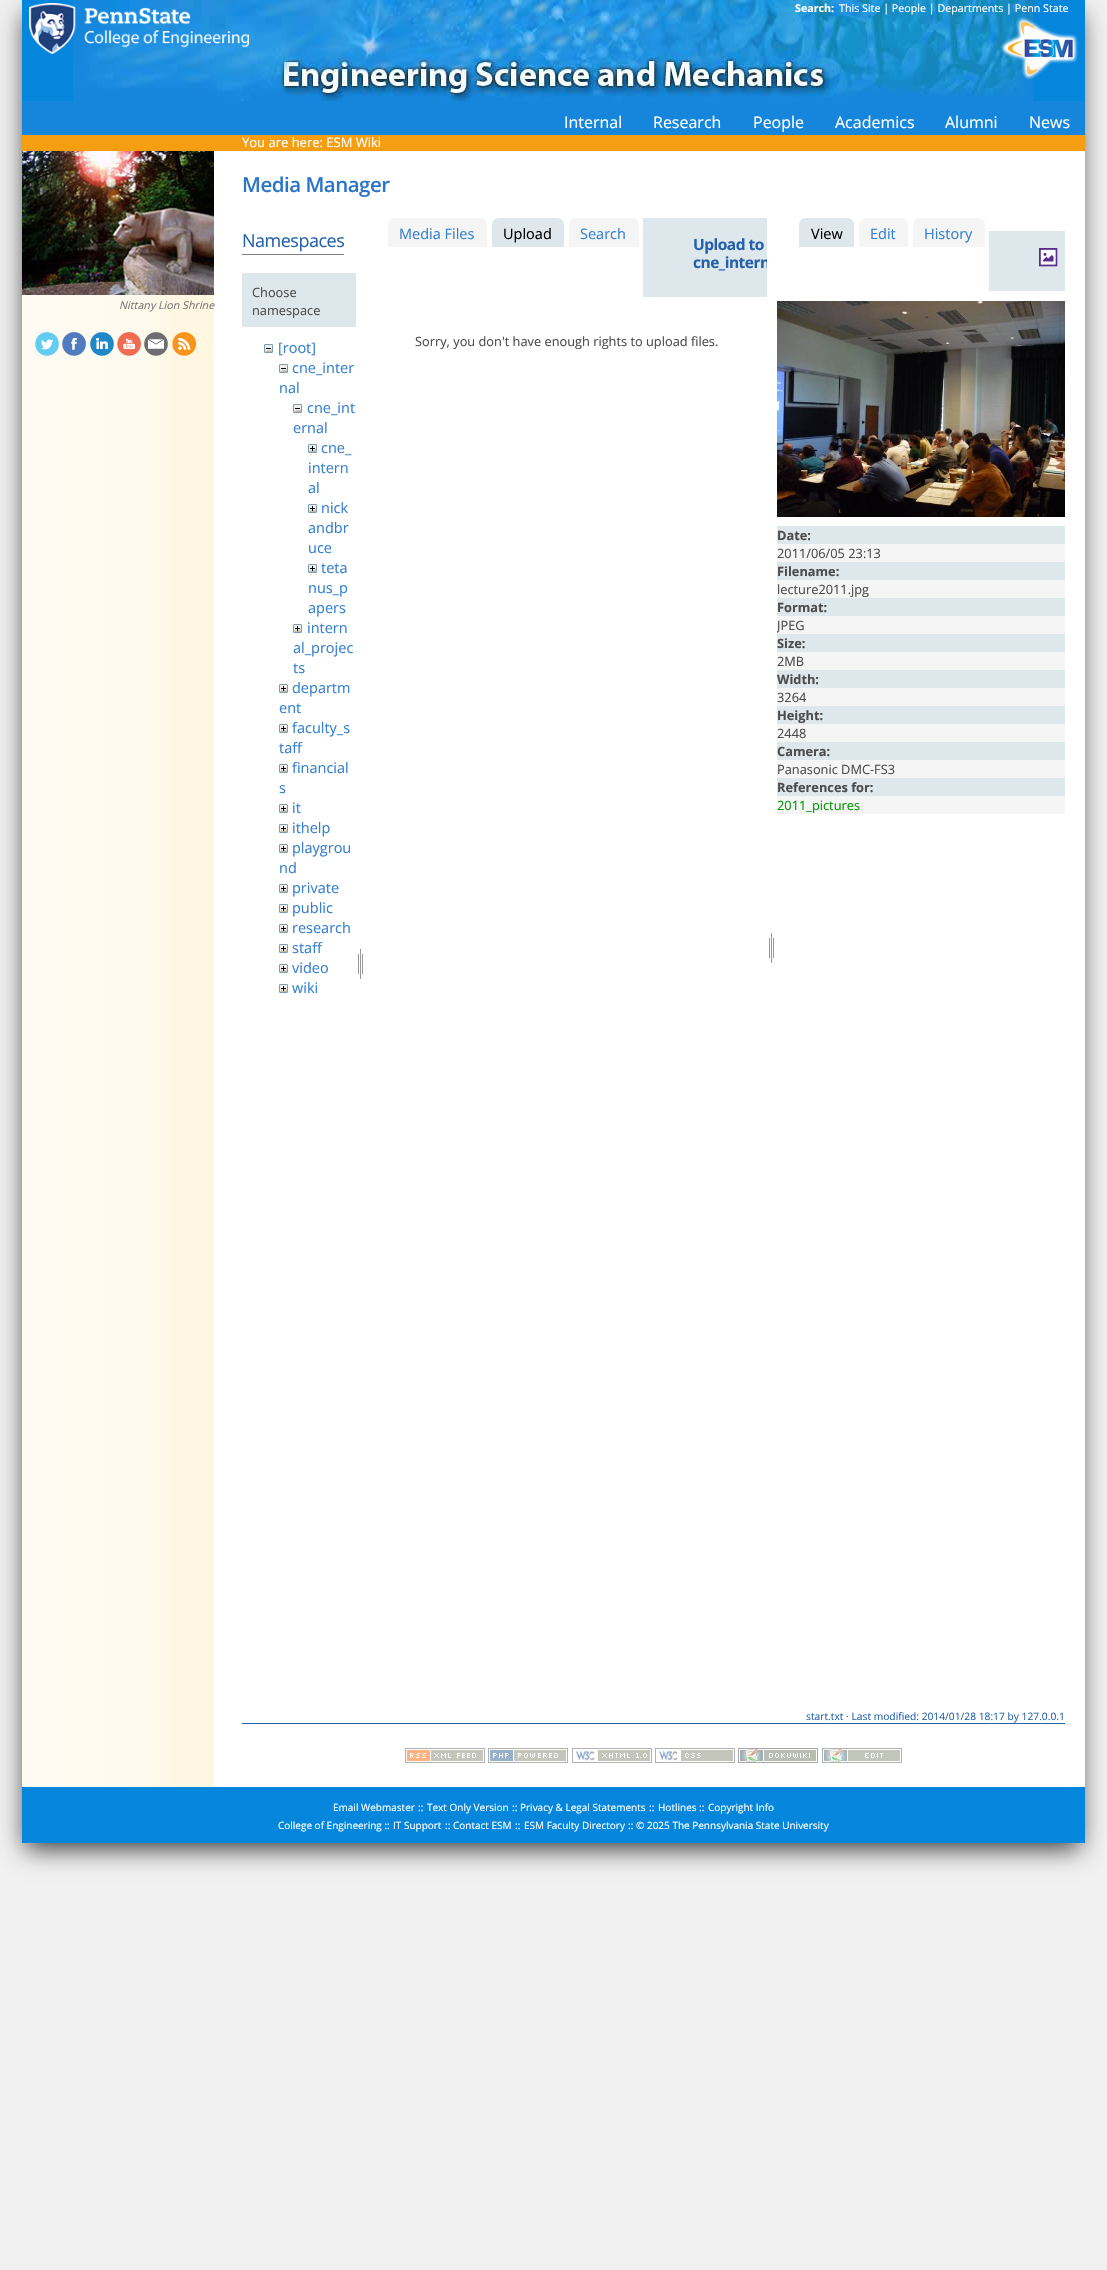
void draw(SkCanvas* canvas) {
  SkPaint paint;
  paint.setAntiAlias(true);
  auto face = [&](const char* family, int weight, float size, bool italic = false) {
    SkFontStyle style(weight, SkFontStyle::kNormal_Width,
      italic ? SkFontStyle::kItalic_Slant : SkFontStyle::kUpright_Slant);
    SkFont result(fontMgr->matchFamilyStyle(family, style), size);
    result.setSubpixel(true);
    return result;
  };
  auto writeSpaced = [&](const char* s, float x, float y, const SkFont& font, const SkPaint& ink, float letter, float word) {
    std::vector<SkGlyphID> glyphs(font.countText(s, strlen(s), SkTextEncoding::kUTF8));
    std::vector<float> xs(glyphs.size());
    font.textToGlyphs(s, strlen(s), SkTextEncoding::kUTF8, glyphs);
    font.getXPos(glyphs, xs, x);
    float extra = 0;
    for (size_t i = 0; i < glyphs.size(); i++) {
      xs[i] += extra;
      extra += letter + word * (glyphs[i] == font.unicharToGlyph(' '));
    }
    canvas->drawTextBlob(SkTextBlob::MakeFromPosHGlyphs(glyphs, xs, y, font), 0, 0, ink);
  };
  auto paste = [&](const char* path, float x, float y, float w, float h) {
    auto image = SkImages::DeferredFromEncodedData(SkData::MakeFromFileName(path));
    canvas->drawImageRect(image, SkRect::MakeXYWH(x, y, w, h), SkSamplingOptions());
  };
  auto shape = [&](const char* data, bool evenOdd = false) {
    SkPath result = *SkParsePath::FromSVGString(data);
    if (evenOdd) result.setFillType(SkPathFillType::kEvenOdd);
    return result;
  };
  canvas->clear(0xfff1f1f1);
  paint.setColor(0xbf000000);
  paint.setMaskFilter(SkMaskFilter::MakeBlur(kNormal_SkBlurStyle, 12));
  canvas->drawRect(SkRect::MakeXYWH(25, 14, 1055, 1835), paint);
  paint.setMaskFilter(nullptr);
  paint.setColor(0xffffffff);
  canvas->drawRect(SkRect::MakeXYWH(214, 151, 871, 1636), paint);
  paint.setColor(0xff0486dd);
  canvas->drawRect(SkRect::MakeXYWH(22, 0, 1063, 101), paint);
  paste("img/1.png", 73, 0, 960, 101);
  paste("img/2.png", 29, 3, 220, 51);
  paste("img/3.png", 1000, 17, 78, 63);
  paint.setColor(0xff1686dc);
  canvas->drawRect(SkRect::MakeXYWH(22, 101, 1063, 34), paint);
  paint.setColor(0xfff69e12);
  canvas->drawRect(SkRect::MakeXYWH(22, 135, 1063, 16), paint);
  paste("img/4.png", 22, 295, 192, 1492);
  paste("img/5.png", 22, 151, 192, 144);
  paste("img/6.png", 35, 332, 24, 24);
  paste("img/7.png", 62, 332, 24, 24);
  paste("img/8.png", 90, 332, 24, 24);
  paste("img/9.png", 117, 332, 24, 24);
  paste("img/10.png", 144, 332, 24, 24);
  paste("img/11.png", 172, 332, 24, 24);
  paint.setColor(0xff808080);
  canvas->drawRect(SkRect::MakeXYWH(242, 254, 102, 1), paint);
  paint.setColor(0xffdee7ec);
  canvas->drawRect(SkRect::MakeXYWH(242, 273, 114, 54), paint);
  paste("img/12.png", 264, 344, 9, 9);
  paste("img/12.png", 279, 364, 9, 9);
  paste("img/12.png", 293, 404, 9, 9);
  paste("img/13.png", 308, 444, 9, 9);
  paste("img/13.png", 308, 504, 9, 9);
  paste("img/13.png", 308, 564, 9, 9);
  paste("img/13.png", 293, 624, 9, 9);
  paste("img/13.png", 279, 684, 9, 9);
  paste("img/13.png", 279, 724, 9, 9);
  paste("img/13.png", 279, 764, 9, 9);
  paste("img/13.png", 279, 804, 9, 9);
  paste("img/13.png", 279, 824, 9, 9);
  paste("img/13.png", 279, 844, 9, 9);
  paste("img/13.png", 279, 884, 9, 9);
  paste("img/13.png", 279, 904, 9, 9);
  paste("img/13.png", 279, 924, 9, 9);
  paste("img/13.png", 279, 944, 9, 9);
  paste("img/13.png", 279, 964, 9, 9);
  paste("img/13.png", 279, 984, 9, 9);
  paste("img/14.png", 358, 948, 5, 31);
  paint.setColor(0xfff5f5f5);
  canvas->drawPath(shape("M395 218H480C484 218 487 221 487 225V247H388V225C388 221 391 218 395 218Z"), paint);
  paint.setColor(0xffdee7ec);
  canvas->drawPath(shape("M499 218H557C561 218 564 221 564 225V247H492V225C492 221 495 218 499 218Z"), paint);
  paint.setColor(0xfff5f5f5);
  canvas->drawPath(shape("M576 218H632C636 218 639 221 639 225V247H569V225C569 221 572 218 576 218Z"), paint);
  paint.setColor(0xffdee7ec);
  canvas->drawRect(SkRect::MakeXYWH(643, 218, 124, 79), paint);
  paste("img/14.png", 769, 932, 5, 31);
  canvas->drawPath(shape("M806 218H847C851 218 854 221 854 225V247H799V225C799 221 802 218 806 218Z"), paint);
  paint.setColor(0xfff5f5f5);
  canvas->drawPath(shape("M866 218H901C905 218 908 221 908 225V247H859V225C859 221 862 218 866 218Z"), paint);
  canvas->drawPath(shape("M920 218H978C982 218 985 221 985 225V247H913V225C913 221 916 218 920 218Z"), paint);
  paint.setColor(0xffdee7ec);
  canvas->drawRect(SkRect::MakeXYWH(989, 231, 76, 60), paint);
  paste("img/15.png", 1039, 248, 19, 19);
  paste("img/16.png", 777, 301, 288, 216);
  {
    const struct { float x, y, w, h; SkColor color; } items[] = {
      {777, 526, 288, 18, 0xffdee7ec},
      {777, 544, 288, 18, 0xfff5f5f5},
      {777, 562, 288, 18, 0xffdee7ec},
      {777, 580, 288, 18, 0xfff5f5f5},
      {777, 598, 288, 18, 0xffdee7ec},
      {777, 616, 288, 18, 0xfff5f5f5},
      {777, 634, 288, 18, 0xffdee7ec},
      {777, 652, 288, 18, 0xfff5f5f5},
      {777, 670, 288, 18, 0xffdee7ec},
      {777, 688, 288, 18, 0xfff5f5f5},
      {777, 706, 288, 18, 0xffdee7ec},
      {777, 724, 288, 18, 0xfff5f5f5},
      {777, 742, 288, 18, 0xffdee7ec},
      {777, 760, 288, 18, 0xfff5f5f5},
      {777, 778, 288, 18, 0xffdee7ec},
      {777, 796, 288, 18, 0xfff5f5f5},
      {242, 1723, 823, 1, 0xff2461aa},
    };
    for (auto [x, y, w, h, color] : items) {
      paint.setColor(color);
      canvas->drawRect(SkRect::MakeXYWH(x, y, w, h), paint);
    }
  }
  paste("img/17.png", 405, 1748, 80, 15);
  paste("img/18.png", 488, 1748, 80, 15);
  paste("img/19.png", 572, 1748, 80, 15);
  paste("img/20.png", 655, 1748, 80, 15);
  paste("img/21.png", 738, 1748, 80, 15);
  paste("img/22.png", 822, 1748, 80, 15);
  paint.setColor(0xff0486dd);
  canvas->drawRect(SkRect::MakeXYWH(22, 1787, 1063, 56), paint);
  auto f0 = face("Open Sans", 700, 10.7f);
  paint.setColor(0xffffffff);
  canvas->drawString("Search:", 795, 12, f0, paint);
  auto f1 = face("Open Sans", 400, 10.7f);
  canvas->drawString("This Site | People | Departments | Penn State", 839, 12, f1, paint);
  auto f2 = face("Open Sans", 400, 16);
  {
    const struct { const char* s; float x, y; } items[] = {
      {"Internal", 564, 128},
      {"Research", 653, 128},
      {"People", 753, 128},
      {"Academics", 835, 128},
      {"Alumni", 945, 128},
      {"News", 1029, 128},
    };
    for (auto [s, x, y] : items) {
      canvas->drawString(s, x, y, f2, paint);
    }
  }
  auto f3 = face("Open Sans", 400, 13);
  canvas->drawString("You are here: ESM Wiki", 242, 147, f3, paint);
  auto f4 = face("Open Sans", 400, 10.7f, true);
  paint.setColor(0xff777777);
  canvas->drawString("Nittany Lion Shrine", 119, 309, f4, paint);
  auto f5 = face("Open Sans", 600, 20.5f);
  paint.setColor(0xff2c76c7);
  writeSpaced("Media Manager", 242, 192, f5, paint, -0.5f, 0);
  auto f6 = face("Open Sans", 400, 18);
  paint.setColor(0xff2461aa);
  writeSpaced("Namespaces", 242, 247, f6, paint, -0.5f, 0);
  auto f7 = face("Open Sans", 400, 12.8f);
  paint.setColor(0xff4c4c4c);
  canvas->drawString("Choose", 252, 297, f7, paint);
  canvas->drawString("namespace", 252, 315, f7, paint);
  auto f8 = face("Open Sans", 400, 14.5f);
  paint.setColor(0xff3580d1);
  {
    const struct { const char* s; float x, y; } items[] = {
      {"[root]", 278, 353},
      {"cne_inter", 292, 373},
      {"nal", 279, 393},
      {"cne_int", 307, 413},
      {"ernal", 293, 433},
      {"cne_", 321, 453},
      {"intern", 308, 473},
      {"al", 308, 493},
      {"nick", 321, 513},
      {"andbr", 308, 533},
      {"uce", 308, 553},
      {"teta", 321, 573},
      {"nus_p", 308, 593},
      {"apers", 308, 613},
      {"intern", 307, 633},
      {"al_projec", 293, 653},
      {"ts", 293, 673},
      {"departm", 292, 693},
      {"ent", 279, 713},
      {"faculty_s", 292, 733},
      {"taff", 279, 753},
      {"financial", 292, 773},
      {"s", 279, 793},
      {"it", 292, 813},
      {"ithelp", 292, 833},
      {"playgrou", 292, 853},
      {"nd", 279, 873},
      {"private", 292, 893},
      {"public", 292, 913},
      {"research", 292, 933},
      {"staff", 292, 953},
      {"video", 292, 973},
      {"wiki", 292, 993},
      {"Media Files", 399, 239},
    };
    for (auto [s, x, y] : items) {
      canvas->drawString(s, x, y, f8, paint);
    }
  }
  paint.setColor(0xff000000);
  canvas->drawString("Upload", 503, 239, f8, paint);
  paint.setColor(0xff3580d1);
  canvas->drawString("Search", 580, 239, f8, paint);
  auto f9 = face("Open Sans", 700, 15.5f);
  paint.setColor(0xff2461aa);
  writeSpaced("Upload to", 693, 250, f9, paint, -0.5f, 0);
  canvas->save();
  canvas->clipRect(SkRect::MakeXYWH(643, 218, 124, 79));
  writeSpaced("cne_intern", 693, 268, f9, paint, -0.5f, 0);
  canvas->restore();
  paint.setColor(0xff4c4c4c);
  canvas->drawString("Sorry, you don't have enough rights to upload files.", 415, 346, f7, paint);
  paint.setColor(0xff000000);
  canvas->drawString("View", 811, 239, f8, paint);
  paint.setColor(0xff3580d1);
  canvas->drawString("Edit", 870, 239, f8, paint);
  canvas->drawString("History", 924, 239, f8, paint);
  auto f10 = face("Open Sans", 700, 12.8f);
  paint.setColor(0xff4c4c4c);
  canvas->drawString("Date:", 777, 540, f10, paint);
  canvas->drawString("2011/06/05 23:13", 777, 558, f7, paint);
  canvas->drawString("Filename:", 777, 576, f10, paint);
  canvas->drawString("lecture2011.jpg", 777, 594, f7, paint);
  canvas->drawString("Format:", 777, 612, f10, paint);
  canvas->save();
  canvas->clipRect(SkRect::MakeXYWH(777, 301, 288, 1362));
  canvas->drawString("JPEG", 777, 630, f7, paint);
  canvas->restore();
  canvas->drawString("Size:", 777, 648, f10, paint);
  canvas->drawString("2MB", 777, 666, f7, paint);
  canvas->drawString("Width:", 777, 684, f10, paint);
  canvas->drawString("3264", 777, 702, f7, paint);
  canvas->drawString("Height:", 777, 720, f10, paint);
  canvas->drawString("2448", 777, 738, f7, paint);
  canvas->drawString("Camera:", 777, 756, f10, paint);
  canvas->drawString("Panasonic DMC-FS3", 777, 774, f7, paint);
  canvas->drawString("References for:", 777, 792, f10, paint);
  paint.setColor(0xff009900);
  canvas->drawString("2011_pictures", 777, 810, f7, paint);
  auto f11 = face("Open Sans", 400, 10.25f);
  paint.setColor(0xff2461aa);
  canvas->drawString("start.txt · Last modified: 2014/01/28 18:17 by 127.0.0.1", 806, 1720, f11, paint);
  auto f12 = face("Open Sans", 400, 10);
  paint.setColor(0xffffffff);
  {
    const struct { const char* s; float x, y; } items[] = {
      {"Email Webmaster", 333, 1811},
      {"::", 418, 1811},
      {"Text Only Version", 427, 1811},
      {"::", 512, 1811},
      {"Privacy & Legal Statements", 520, 1811},
      {"::", 649, 1811},
      {"Hotlines", 658, 1811},
      {"::", 699, 1811},
      {"Copyright Info", 708, 1811},
      {"College of Engineering ::", 278, 1829},
      {"IT Support", 393, 1829},
      {"::", 445, 1829},
      {"Contact ESM", 453, 1829},
      {"::", 515, 1829},
      {"ESM Faculty Directory", 524, 1829},
      {"::", 628, 1829},
      {"© 2025 The Pennsylvania State University", 636, 1829},
    };
    for (auto [s, x, y] : items) {
      canvas->drawString(s, x, y, f12, paint);
    }
  }
}
